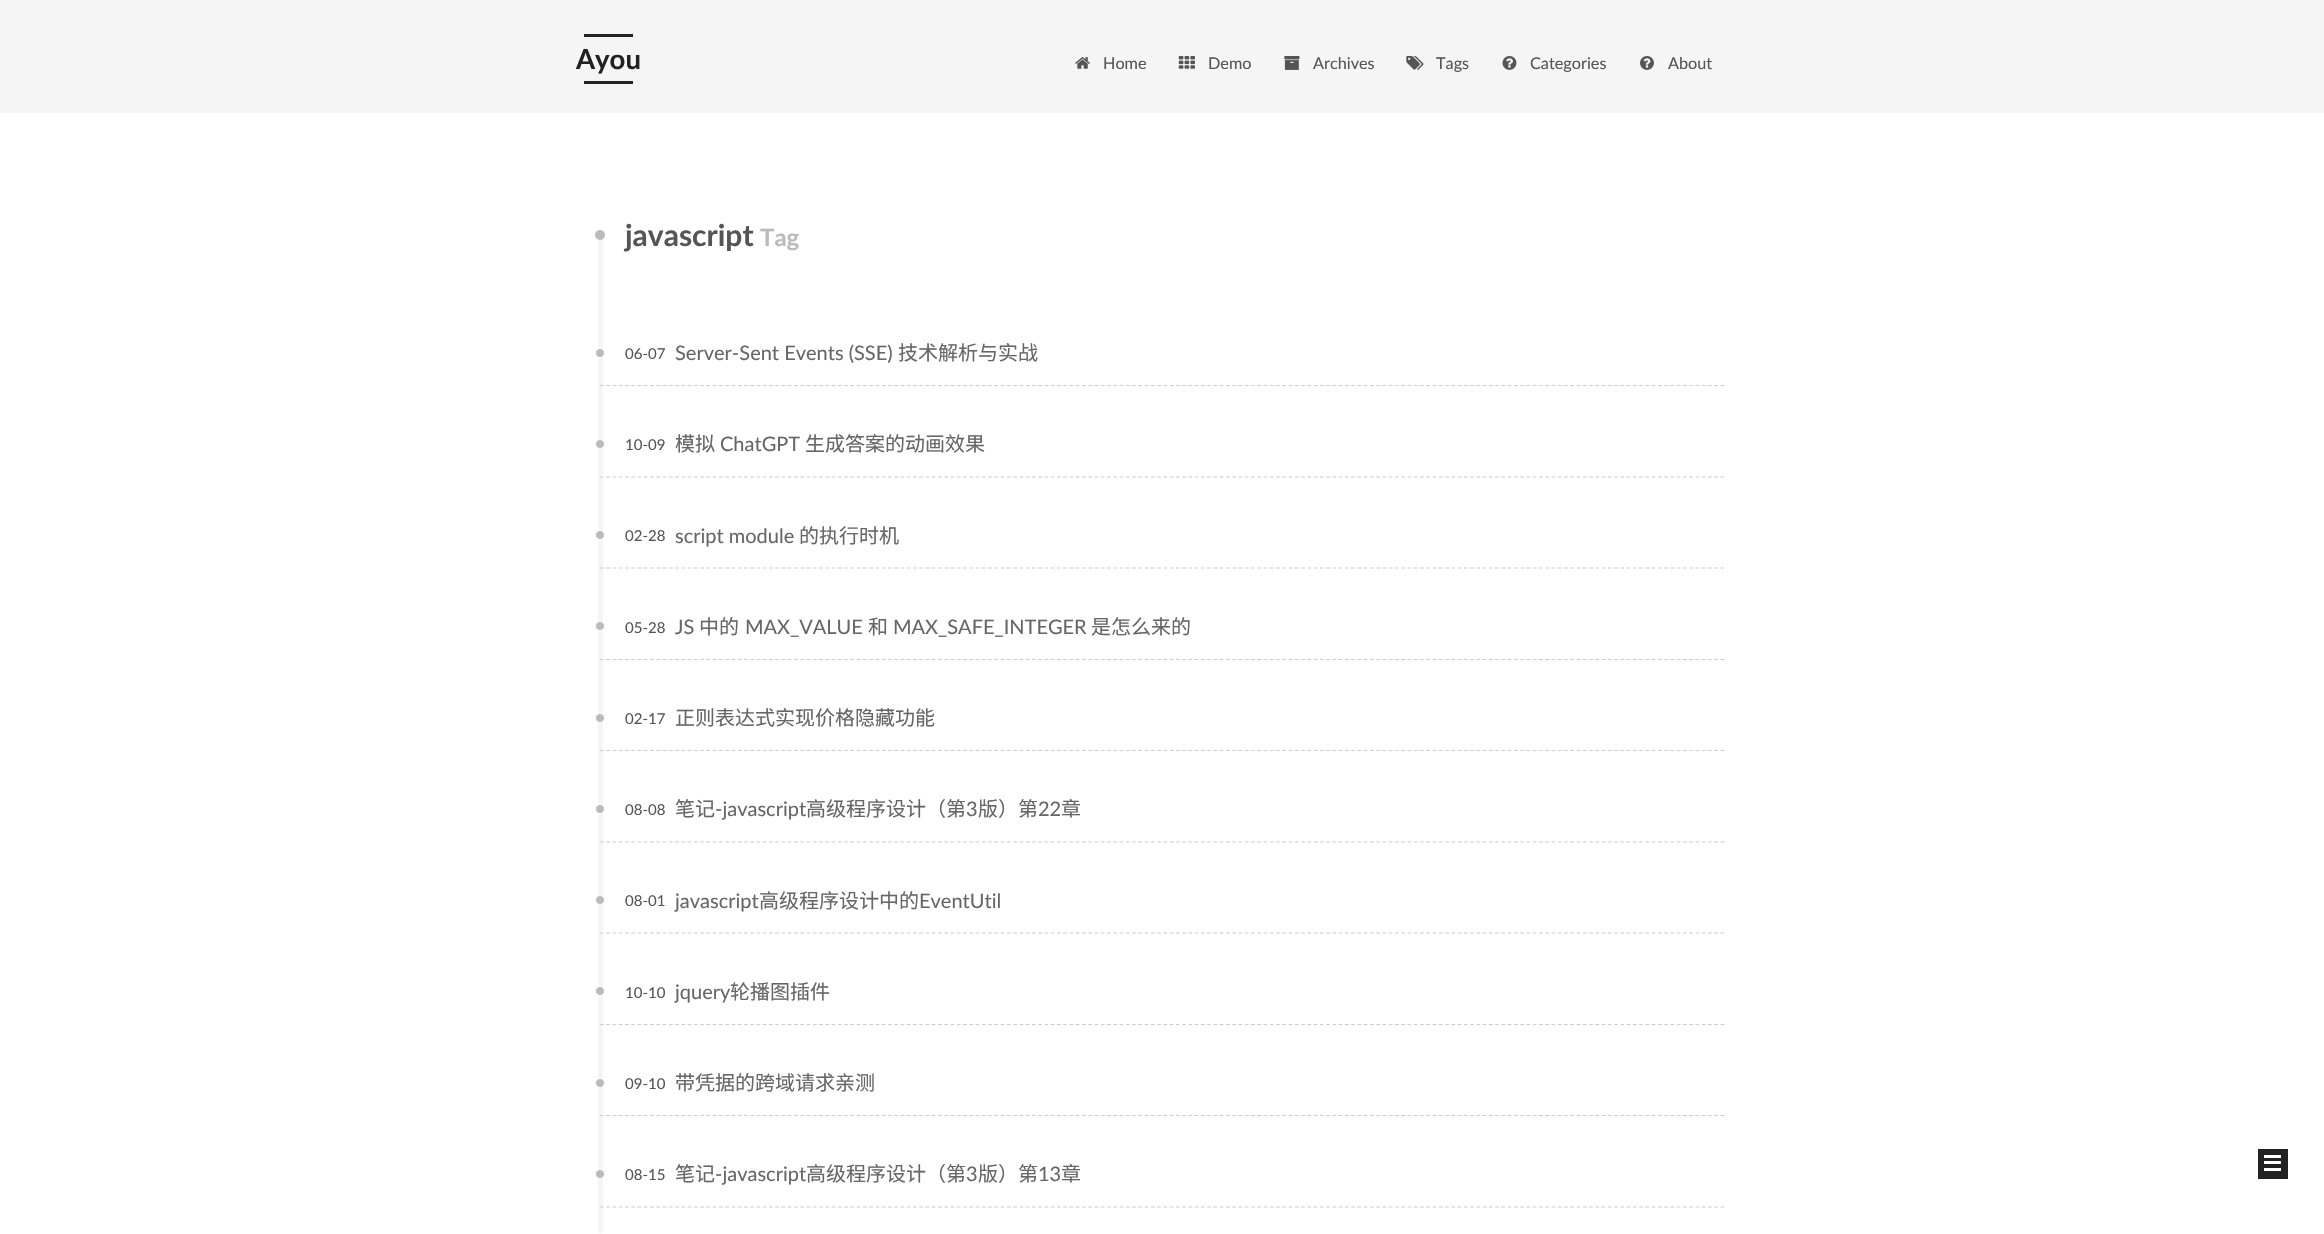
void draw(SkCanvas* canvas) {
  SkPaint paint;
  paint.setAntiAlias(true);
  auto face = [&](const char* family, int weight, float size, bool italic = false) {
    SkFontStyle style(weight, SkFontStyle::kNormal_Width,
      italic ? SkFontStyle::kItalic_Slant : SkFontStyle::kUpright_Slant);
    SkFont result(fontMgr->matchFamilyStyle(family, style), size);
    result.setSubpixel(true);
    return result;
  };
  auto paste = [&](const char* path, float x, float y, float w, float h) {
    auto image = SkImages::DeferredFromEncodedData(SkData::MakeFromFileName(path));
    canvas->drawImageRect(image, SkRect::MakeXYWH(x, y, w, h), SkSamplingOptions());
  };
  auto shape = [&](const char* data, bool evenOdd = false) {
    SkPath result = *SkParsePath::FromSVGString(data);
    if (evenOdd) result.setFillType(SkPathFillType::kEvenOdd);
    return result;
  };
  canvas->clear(0xffffffff);
  {
    const struct { float x, y, w, h; SkColor color; } items[] = {
      {0, 0, 2324, 113, 0xfff5f5f5},
      {584, 34, 49, 3, 0xff222222},
      {584, 81, 49, 3, 0xff222222},
    };
    for (auto [x, y, w, h, color] : items) {
      paint.setColor(color);
      canvas->drawRect(SkRect::MakeXYWH(x, y, w, h), paint);
    }
  }
  paste("img/1.png", 1075, 57, 15, 12);
  paste("img/2.png", 1178, 56, 17, 13);
  paste("img/3.png", 1284, 56, 16, 14);
  paste("img/4.png", 1406, 56, 18, 14);
  paste("img/5.png", 1502, 56, 15, 14);
  paste("img/6.png", 1640, 56, 14, 14);
  paint.setColor(0xfff5f5f5);
  canvas->drawRect(SkRect::MakeXYWH(598, 238, 5, 995), paint);
  paint.setColor(0xffbbbbbb);
  canvas->drawCircle(600, 235, 5, paint);
  paint.setStroke(true);
  paint.setStrokeWidth(1.2f);
  paint.setColor(0xffcccccc);
  paint.setPathEffect(SkDashPathEffect::Make({{3.75f, 2.51f}}, 0));
  canvas->drawPath(shape("M600 385.5H1725"), paint);
  paint.setPathEffect(nullptr);
  paint.setStroke(false);
  paint.setColor(0xffbbbbbb);
  canvas->drawCircle(600, 353, 4.5f, paint);
  paint.setStroke(true);
  paint.setStrokeWidth(1);
  paint.setColor(0xffffffff);
  canvas->drawCircle(600, 353, 4.5f, paint);
  paint.setStrokeWidth(1.2f);
  paint.setColor(0xffcccccc);
  paint.setPathEffect(SkDashPathEffect::Make({{3.75f, 2.51f}}, 0));
  canvas->drawPath(shape("M600 477H1725"), paint);
  paint.setPathEffect(nullptr);
  paint.setStroke(false);
  paint.setColor(0xffbbbbbb);
  canvas->drawCircle(600, 444, 4.5f, paint);
  paint.setStroke(true);
  paint.setStrokeWidth(1);
  paint.setColor(0xffffffff);
  canvas->drawCircle(600, 444, 4.5f, paint);
  paint.setStrokeWidth(1.2f);
  paint.setColor(0xffcccccc);
  paint.setPathEffect(SkDashPathEffect::Make({{3.75f, 2.51f}}, 0));
  canvas->drawPath(shape("M600 568H1725"), paint);
  paint.setPathEffect(nullptr);
  paint.setStroke(false);
  paint.setColor(0xffbbbbbb);
  canvas->drawCircle(600, 535, 4.5f, paint);
  paint.setStroke(true);
  paint.setStrokeWidth(1);
  paint.setColor(0xffffffff);
  canvas->drawCircle(600, 535, 4.5f, paint);
  paint.setStrokeWidth(1.2f);
  paint.setColor(0xffcccccc);
  paint.setPathEffect(SkDashPathEffect::Make({{3.75f, 2.51f}}, 0));
  canvas->drawPath(shape("M600 659.5H1725"), paint);
  paint.setPathEffect(nullptr);
  paint.setStroke(false);
  paint.setColor(0xffbbbbbb);
  canvas->drawCircle(600, 626, 4.5f, paint);
  paint.setStroke(true);
  paint.setStrokeWidth(1);
  paint.setColor(0xffffffff);
  canvas->drawCircle(600, 626, 4.5f, paint);
  paint.setStrokeWidth(1.2f);
  paint.setColor(0xffcccccc);
  paint.setPathEffect(SkDashPathEffect::Make({{3.75f, 2.51f}}, 0));
  canvas->drawPath(shape("M600 750.5H1725"), paint);
  paint.setPathEffect(nullptr);
  paint.setStroke(false);
  paint.setColor(0xffbbbbbb);
  canvas->drawCircle(600, 718, 4.5f, paint);
  paint.setStroke(true);
  paint.setStrokeWidth(1);
  paint.setColor(0xffffffff);
  canvas->drawCircle(600, 718, 4.5f, paint);
  paint.setStrokeWidth(1.2f);
  paint.setColor(0xffcccccc);
  paint.setPathEffect(SkDashPathEffect::Make({{3.75f, 2.51f}}, 0));
  canvas->drawPath(shape("M600 842H1725"), paint);
  paint.setPathEffect(nullptr);
  paint.setStroke(false);
  paint.setColor(0xffbbbbbb);
  canvas->drawCircle(600, 809, 4.5f, paint);
  paint.setStroke(true);
  paint.setStrokeWidth(1);
  paint.setColor(0xffffffff);
  canvas->drawCircle(600, 809, 4.5f, paint);
  paint.setStrokeWidth(1.2f);
  paint.setColor(0xffcccccc);
  paint.setPathEffect(SkDashPathEffect::Make({{3.75f, 2.51f}}, 0));
  canvas->drawPath(shape("M600 933H1725"), paint);
  paint.setPathEffect(nullptr);
  paint.setStroke(false);
  paint.setColor(0xffbbbbbb);
  canvas->drawCircle(600, 900, 4.5f, paint);
  paint.setStroke(true);
  paint.setStrokeWidth(1);
  paint.setColor(0xffffffff);
  canvas->drawCircle(600, 900, 4.5f, paint);
  paint.setStrokeWidth(1.2f);
  paint.setColor(0xffcccccc);
  paint.setPathEffect(SkDashPathEffect::Make({{3.75f, 2.51f}}, 0));
  canvas->drawPath(shape("M600 1024.5H1725"), paint);
  paint.setPathEffect(nullptr);
  paint.setStroke(false);
  paint.setColor(0xffbbbbbb);
  canvas->drawCircle(600, 991, 4.5f, paint);
  paint.setStroke(true);
  paint.setStrokeWidth(1);
  paint.setColor(0xffffffff);
  canvas->drawCircle(600, 991, 4.5f, paint);
  paint.setStrokeWidth(1.2f);
  paint.setColor(0xffcccccc);
  paint.setPathEffect(SkDashPathEffect::Make({{3.75f, 2.51f}}, 0));
  canvas->drawPath(shape("M600 1115.5H1725"), paint);
  paint.setPathEffect(nullptr);
  paint.setStroke(false);
  paint.setColor(0xffbbbbbb);
  canvas->drawCircle(600, 1083, 4.5f, paint);
  paint.setStroke(true);
  paint.setStrokeWidth(1);
  paint.setColor(0xffffffff);
  canvas->drawCircle(600, 1083, 4.5f, paint);
  paint.setStrokeWidth(1.2f);
  paint.setColor(0xffcccccc);
  paint.setPathEffect(SkDashPathEffect::Make({{3.75f, 2.51f}}, 0));
  canvas->drawPath(shape("M600 1207H1725"), paint);
  paint.setPathEffect(nullptr);
  paint.setStroke(false);
  paint.setColor(0xffbbbbbb);
  canvas->drawCircle(600, 1174, 4.5f, paint);
  paint.setStroke(true);
  paint.setStrokeWidth(1);
  paint.setColor(0xffffffff);
  canvas->drawCircle(600, 1174, 4.5f, paint);
  paint.setStroke(false);
  {
    const struct { float x, y, w, h; SkColor color; } items[] = {
      {2258, 1149, 30, 30, 0xff222222},
      {2264, 1155, 17, 3, 0xffffffff},
      {2264, 1161, 17, 3, 0xffffffff},
      {2264, 1168, 17, 3, 0xffffffff},
    };
    for (auto [x, y, w, h, color] : items) {
      paint.setColor(color);
      canvas->drawRect(SkRect::MakeXYWH(x, y, w, h), paint);
    }
  }
  auto f0 = face("Lato", 700, 27.5f);
  paint.setColor(0xff222222);
  canvas->drawString("Ayou", 576, 69, f0, paint);
  auto f1 = face("Lato", 400, 16.25f);
  paint.setColor(0xff555555);
  {
    const struct { const char* s; float x, y; } items[] = {
      {"Home", 1103, 69},
      {"Demo", 1208, 69},
      {"Archives", 1313, 69},
      {"Tags", 1436, 69},
      {"Categories", 1530, 69},
      {"About", 1668, 69},
    };
    for (auto [s, x, y] : items) {
      canvas->drawString(s, x, y, f1, paint);
    }
  }
  auto f2 = face("Lato", 700, 30);
  canvas->drawString("javascript", 625, 246, f2, paint);
  auto f3 = face("Lato", 700, 24);
  paint.setColor(0xffbbbbbb);
  canvas->drawString("Tag", 760, 246, f3, paint);
  auto f4 = face("Lato", 400, 15);
  paint.setColor(0xff555555);
  canvas->drawString("06-07", 625, 359, f4, paint);
  auto f5 = face("Lato", 400, 20);
  paint.setColor(0xff666666);
  canvas->drawString("Server-Sent Events (SSE)", 675, 360, f5, paint);
  auto f6 = face("Noto Sans CJK SC", 400, 20);
  canvas->drawString("技术解析与实战", 898, 360, f6, paint);
  paint.setColor(0xff555555);
  canvas->drawString("10-09", 625, 450, f4, paint);
  paint.setColor(0xff666666);
  canvas->drawString("模拟", 675, 451, f6, paint);
  canvas->drawString("ChatGPT", 720, 451, f5, paint);
  canvas->drawString("生成答案的动画效果", 805, 451, f6, paint);
  paint.setColor(0xff555555);
  canvas->drawString("02-28", 625, 541, f4, paint);
  paint.setColor(0xff666666);
  canvas->drawString("script module", 675, 543, f5, paint);
  canvas->drawString("的执行时机", 799, 543, f6, paint);
  paint.setColor(0xff555555);
  canvas->drawString("05-28", 625, 633, f4, paint);
  paint.setColor(0xff666666);
  canvas->drawString("JS", 675, 634, f5, paint);
  canvas->drawString("中的", 699, 634, f6, paint);
  canvas->drawString("MAX_VALUE", 745, 634, f5, paint);
  canvas->drawString("和", 868, 634, f6, paint);
  canvas->drawString("MAX_SAFE_INTEGER", 893, 634, f5, paint);
  canvas->drawString("是怎么来的", 1091, 634, f6, paint);
  paint.setColor(0xff555555);
  canvas->drawString("02-17", 625, 724, f4, paint);
  paint.setColor(0xff666666);
  canvas->drawString("正则表达式实现价格隐藏功能", 675, 725, f6, paint);
  paint.setColor(0xff555555);
  canvas->drawString("08-08", 625, 815, f4, paint);
  paint.setColor(0xff666666);
  canvas->drawString("笔记", 675, 816, f6, paint);
  canvas->drawString("-javascript", 715, 816, f5, paint);
  canvas->drawString("高级程序设计（第", 806, 816, f6, paint);
  canvas->drawString("3", 966, 816, f5, paint);
  canvas->drawString("版）第", 978, 816, f6, paint);
  canvas->drawString("22", 1038, 816, f5, paint);
  canvas->drawString("章", 1061, 816, f6, paint);
  paint.setColor(0xff555555);
  canvas->drawString("08-01", 625, 906, f4, paint);
  paint.setColor(0xff666666);
  canvas->drawString("javascript", 675, 908, f5, paint);
  canvas->drawString("高级程序设计中的", 759, 908, f6, paint);
  canvas->drawString("EventUtil", 919, 908, f5, paint);
  paint.setColor(0xff555555);
  canvas->drawString("10-10", 625, 998, f4, paint);
  paint.setColor(0xff666666);
  canvas->drawString("jquery", 675, 999, f5, paint);
  canvas->drawString("轮播图插件", 730, 999, f6, paint);
  paint.setColor(0xff555555);
  canvas->drawString("09-10", 625, 1089, f4, paint);
  paint.setColor(0xff666666);
  canvas->drawString("带凭据的跨域请求亲测", 675, 1090, f6, paint);
  paint.setColor(0xff555555);
  canvas->drawString("08-15", 625, 1180, f4, paint);
  paint.setColor(0xff666666);
  canvas->drawString("笔记", 675, 1181, f6, paint);
  canvas->drawString("-javascript", 715, 1181, f5, paint);
  canvas->drawString("高级程序设计（第", 806, 1181, f6, paint);
  canvas->drawString("3", 966, 1181, f5, paint);
  canvas->drawString("版）第", 978, 1181, f6, paint);
  canvas->drawString("13", 1038, 1181, f5, paint);
  canvas->drawString("章", 1061, 1181, f6, paint);
}
